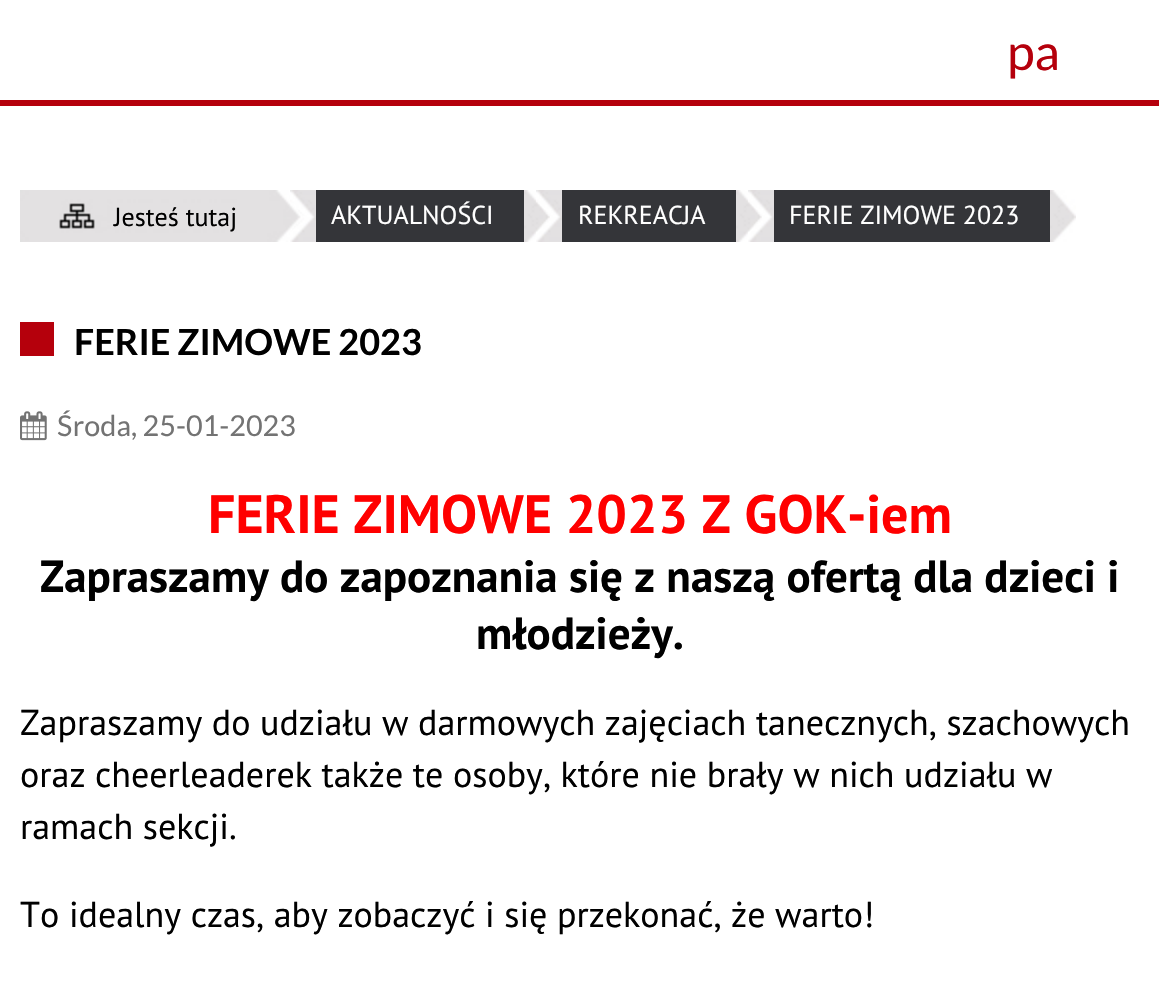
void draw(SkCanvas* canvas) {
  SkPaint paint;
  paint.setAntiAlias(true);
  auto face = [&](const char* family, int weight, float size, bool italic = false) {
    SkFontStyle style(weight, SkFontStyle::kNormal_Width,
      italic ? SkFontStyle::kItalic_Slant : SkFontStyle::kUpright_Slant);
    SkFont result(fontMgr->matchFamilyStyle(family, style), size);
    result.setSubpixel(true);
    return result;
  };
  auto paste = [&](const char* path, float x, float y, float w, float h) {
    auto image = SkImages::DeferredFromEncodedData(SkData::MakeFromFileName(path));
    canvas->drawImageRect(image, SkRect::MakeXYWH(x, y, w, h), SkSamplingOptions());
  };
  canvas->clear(0xffffffff);
  paint.setColor(0xffb5000c);
  canvas->drawRect(SkRect::MakeXYWH(0, 100, 1159, 6), paint);
  paste("img/1.png", 20, 190, 285, 52);
  paint.setColor(0xff343539);
  canvas->drawRect(SkRect::MakeXYWH(316, 190, 208, 52), paint);
  paste("img/2.png", 290, 190, 26, 52);
  paste("img/3.png", 524, 190, 26, 52);
  canvas->drawRect(SkRect::MakeXYWH(562, 190, 174, 52), paint);
  paste("img/4.png", 536, 190, 26, 52);
  paste("img/3.png", 736, 190, 26, 52);
  canvas->drawRect(SkRect::MakeXYWH(774, 190, 276, 52), paint);
  paste("img/4.png", 748, 190, 26, 52);
  paste("img/3.png", 1050, 190, 26, 52);
  paint.setColor(0xffb5000c);
  canvas->drawRect(SkRect::MakeXYWH(20, 322, 34, 34), paint);
  paste("img/5.png", 20, 411, 27, 30);
  auto f0 = face("Lato", 400, 50);
  canvas->drawString("pa", 1007, 70, f0, paint);
  auto f1 = face("PT Sans", 400, 26);
  paint.setColor(0xff000000);
  canvas->drawString("Jesteś tutaj", 114, 226, f1, paint);
  paint.setColor(0xffffffff);
  {
    const struct { const char* s; float x, y; } items[] = {
      {"AKTUALNOŚCI", 331, 224},
      {"REKREACJA", 578, 224},
      {"FERIE ZIMOWE 2023", 789, 224},
    };
    for (auto [s, x, y] : items) {
      canvas->drawString(s, x, y, f1, paint);
    }
  }
  auto f2 = face("Lato", 700, 36);
  paint.setColor(0xff000000);
  canvas->drawString("FERIE ZIMOWE 2023", 74, 355, f2, paint);
  auto f3 = face("Lato", 400, 28.75f);
  paint.setColor(0xff737373);
  canvas->drawString("Środa, 25-01-2023", 57, 436, f3, paint);
  auto f4 = face("PT Sans", 700, 54);
  paint.setColor(0xffff0000);
  canvas->drawString("FERIE ZIMOWE 2023 Z GOK-iem", 208, 533, f4, paint);
  auto f5 = face("PT Sans", 700, 45);
  paint.setColor(0xff000000);
  canvas->drawString("Zapraszamy do zapoznania się z naszą ofertą dla dzieci i", 40, 592, f5, paint);
  canvas->drawString("młodzieży.", 476, 649, f5, paint);
  auto f6 = face("PT Sans", 400, 36);
  {
    const struct { const char* s; float x, y; } items[] = {
      {"Zapraszamy do udziału w darmowych zajęciach tanecznych, szachowych", 20, 735},
      {"oraz cheerleaderek także te osoby, które nie brały w nich udziału w", 20, 787},
      {"ramach sekcji.", 20, 839},
      {"To idealny czas, aby zobaczyć i się przekonać, że warto!", 20, 927},
    };
    for (auto [s, x, y] : items) {
      canvas->drawString(s, x, y, f6, paint);
    }
  }
}
